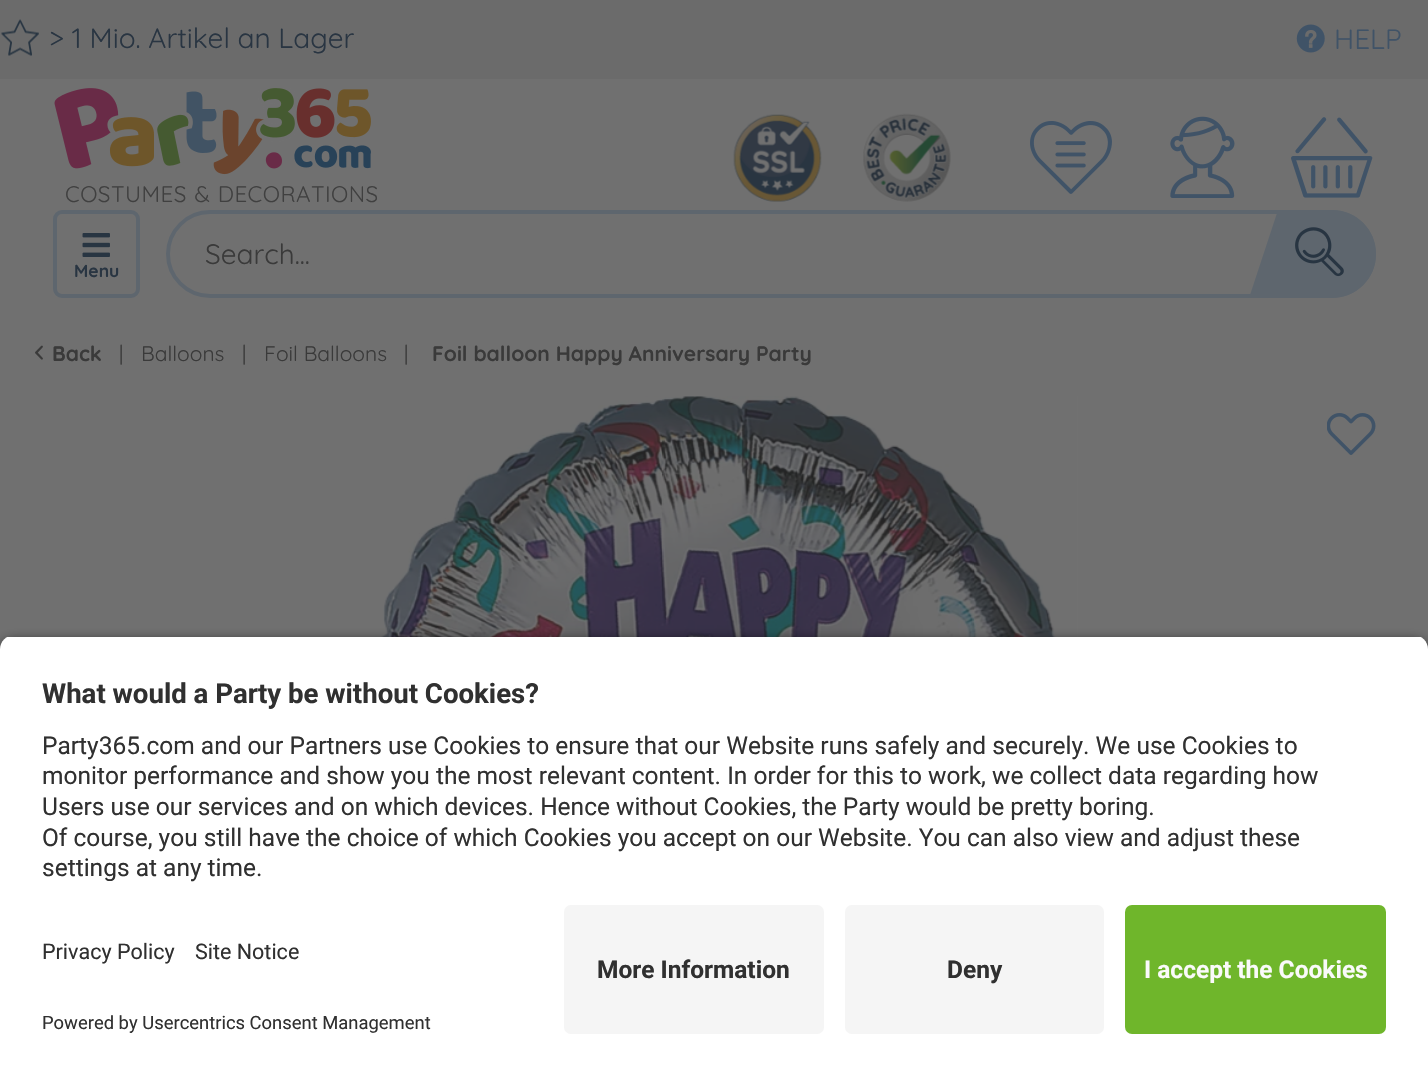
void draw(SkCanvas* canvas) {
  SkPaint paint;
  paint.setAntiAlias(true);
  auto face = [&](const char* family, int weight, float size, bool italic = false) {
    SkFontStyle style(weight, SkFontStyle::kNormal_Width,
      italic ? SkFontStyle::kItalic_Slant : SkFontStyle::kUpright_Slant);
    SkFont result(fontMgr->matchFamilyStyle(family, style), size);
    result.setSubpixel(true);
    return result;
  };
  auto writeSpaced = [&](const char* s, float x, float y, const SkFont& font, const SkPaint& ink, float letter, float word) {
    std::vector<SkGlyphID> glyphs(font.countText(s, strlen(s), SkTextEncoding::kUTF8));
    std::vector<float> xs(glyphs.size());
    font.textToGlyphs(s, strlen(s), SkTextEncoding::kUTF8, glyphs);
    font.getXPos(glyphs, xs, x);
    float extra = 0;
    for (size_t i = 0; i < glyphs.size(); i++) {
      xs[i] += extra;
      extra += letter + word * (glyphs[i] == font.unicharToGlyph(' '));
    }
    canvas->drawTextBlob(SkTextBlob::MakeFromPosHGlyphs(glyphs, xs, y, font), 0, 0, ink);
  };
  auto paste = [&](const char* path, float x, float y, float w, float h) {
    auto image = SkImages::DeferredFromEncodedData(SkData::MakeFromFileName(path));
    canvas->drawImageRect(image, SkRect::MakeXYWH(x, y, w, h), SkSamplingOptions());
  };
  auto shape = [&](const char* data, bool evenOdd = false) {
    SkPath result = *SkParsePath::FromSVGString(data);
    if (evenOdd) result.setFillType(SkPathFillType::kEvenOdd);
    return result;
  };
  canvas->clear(0xff707070);
  paint.setColor(0xff6b6b6b);
  canvas->drawRect(SkRect::MakeXYWH(0, 0, 1428, 79), paint);
  paste("img/1.png", 1, 19, 38, 37);
  paste("img/2.png", 1296, 24, 29, 29);
  paste("img/3.png", 54, 88, 317, 87);
  paste("img/4.png", 733, 114, 89, 88);
  paste("img/5.png", 863, 113, 88, 89);
  paste("img/6.png", 1030, 121, 82, 73);
  paste("img/7.png", 1170, 116, 65, 82);
  paste("img/8.png", 1291, 117, 82, 81);
  paint.setStroke(true);
  paint.setStrokeWidth(4);
  paint.setColor(0xff5e666e);
  canvas->drawRoundRect(SkRect::MakeXYWH(168, 212, 1206, 84), 42, 42, paint);
  paint.setStroke(false);
  canvas->drawPath(shape("M1315 210H1332C1356.5 210 1376 229.5 1376 254C1376 278.5 1356.5 298 1332 298H1271V254C1271 229.5 1290.5 210 1315 210Z"), paint);
  canvas->drawPath(shape("M1278 210H1313L1284 298H1249Z"), paint);
  paste("img/9.png", 1295, 227, 49, 50);
  paint.setStroke(true);
  canvas->drawRoundRect(SkRect::MakeXYWH(55, 212, 83, 84), 7, 7, paint);
  paste("img/10.png", 82, 233, 28, 24);
  paste("img/11.png", 35, 345, 8, 15);
  paste("img/12.png", 350, 396, 729, 241);
  paste("img/13.png", 1327, 413, 49, 42);
  paint.setStroke(false);
  paint.setColor(0xcc000000);
  paint.setMaskFilter(SkMaskFilter::MakeBlur(kNormal_SkBlurStyle, 6));
  canvas->drawRoundRect(SkRect::MakeXYWH(0, 641, 1428, 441), 14, 14, paint);
  paint.setMaskFilter(nullptr);
  canvas->save();
  canvas->clipPath(shape("M14 635H1414C1421.5 635 1428 641.5 1428 649V891H0V649C0 641.5 6.5 635 14 635Z"), true);
  paint.setColor(0xffffffff);
  canvas->drawRect(SkRect::MakeXYWH(0, 637, 1428, 254), paint);
  canvas->restore();
  canvas->drawRect(SkRect::MakeXYWH(0, 891, 1428, 184), paint);
  paint.setColor(0xfff5f5f5);
  canvas->drawRoundRect(SkRect::MakeXYWH(564, 905, 260, 129), 7, 7, paint);
  canvas->drawRoundRect(SkRect::MakeXYWH(845, 905, 259, 129), 7, 7, paint);
  paint.setColor(0xff6fb62b);
  canvas->drawRoundRect(SkRect::MakeXYWH(1125, 905, 261, 129), 7, 7, paint);
  auto f0 = face("Quicksand", 400, 28);
  paint.setColor(0xff293542);
  canvas->drawString("> 1 Mio. Artikel an Lager", 49, 48, f0, paint);
  paint.setColor(0xff405367);
  canvas->drawString("HELP", 1334, 49, f0, paint);
  auto f1 = face("Quicksand", 400, 22.5f);
  paint.setColor(0xff404040);
  writeSpaced("COSTUMES & DECORATIONS", 65, 202, f1, paint, 0.45f, 1);
  paint.setColor(0xff3a3a3a);
  canvas->drawString("Search...", 205, 264, f0, paint);
  auto f2 = face("Quicksand", 700, 17.5f);
  paint.setColor(0xff293542);
  canvas->drawString("Menu", 74, 277, f2, paint);
  auto f3 = face("Quicksand", 700, 21);
  paint.setColor(0xff3a3a3a);
  canvas->drawString("Back", 52, 361, f3, paint);
  auto f4 = face("Quicksand", 400, 21);
  {
    const struct { const char* s; float x, y; } items[] = {
      {"|", 119, 361},
      {"Balloons", 141, 361},
      {"|", 242, 361},
      {"Foil Balloons", 264, 361},
      {"|", 404, 361},
    };
    for (auto [s, x, y] : items) {
      canvas->drawString(s, x, y, f4, paint);
    }
  }
  canvas->drawString("Foil balloon Happy Anniversary Party", 432, 361, f3, paint);
  auto f5 = face("Roboto", 700, 27.6f);
  paint.setColor(0xff303030);
  canvas->drawString("What would a Party be without Cookies?", 42, 703, f5, paint);
  auto f6 = face("Roboto", 400, 24.5f);
  {
    const struct { const char* s; float x, y; } items[] = {
      {"Party365.com and our Partners use Cookies to ensure that our Website runs safely and securely. We use Cookies to", 42, 754},
      {"monitor performance and show you the most relevant content. In order for this to work, we collect data regarding how", 42, 784},
      {"Users use our services and on which devices. Hence without Cookies, the Party would be pretty boring.", 42, 815},
      {"Of course, you still have the choice of which Cookies you accept on our Website. You can also view and adjust these", 42, 846},
      {"settings at any time.", 42, 876},
    };
    for (auto [s, x, y] : items) {
      canvas->drawString(s, x, y, f6, paint);
    }
  }
  auto f7 = face("Roboto", 400, 21.5f);
  canvas->drawString("Privacy Policy", 42, 959, f7, paint);
  canvas->drawString("Site Notice", 195, 959, f7, paint);
  auto f8 = face("Roboto", 400, 18.4f);
  canvas->drawString("Powered by Usercentrics Consent Management", 42, 1029, f8, paint);
  auto f9 = face("Roboto", 700, 24.5f);
  canvas->drawString("More Information", 597, 978, f9, paint);
  canvas->drawString("Deny", 947, 978, f9, paint);
  paint.setColor(0xfffafafa);
  canvas->drawString("I accept the Cookies", 1144, 978, f9, paint);
}
